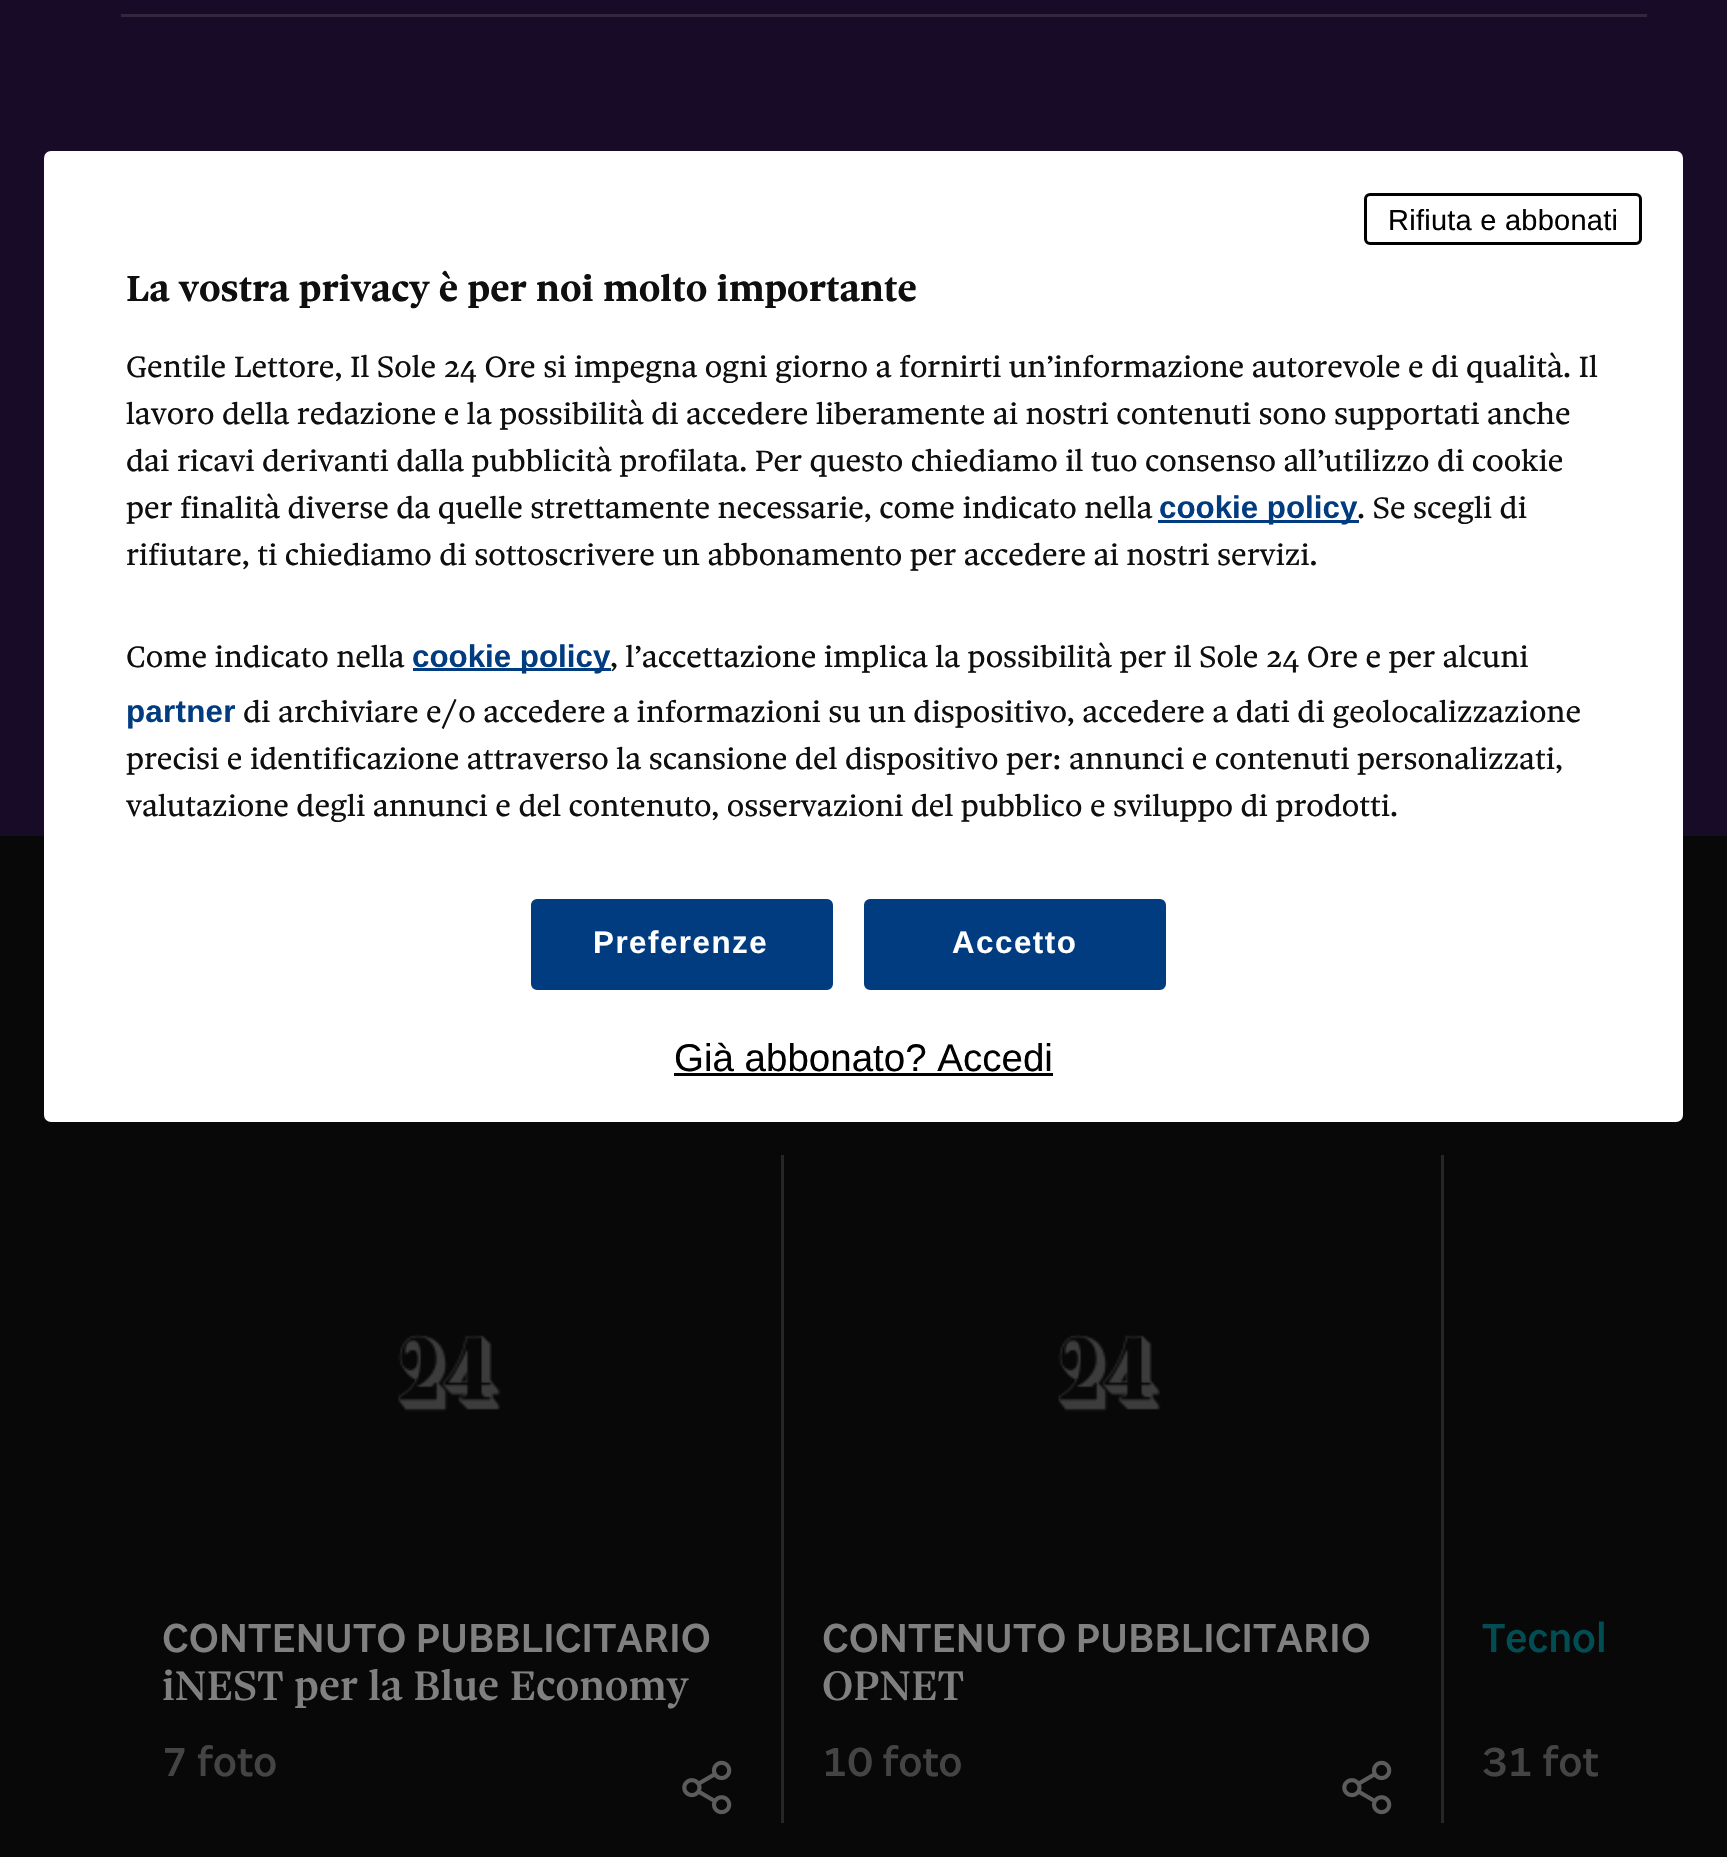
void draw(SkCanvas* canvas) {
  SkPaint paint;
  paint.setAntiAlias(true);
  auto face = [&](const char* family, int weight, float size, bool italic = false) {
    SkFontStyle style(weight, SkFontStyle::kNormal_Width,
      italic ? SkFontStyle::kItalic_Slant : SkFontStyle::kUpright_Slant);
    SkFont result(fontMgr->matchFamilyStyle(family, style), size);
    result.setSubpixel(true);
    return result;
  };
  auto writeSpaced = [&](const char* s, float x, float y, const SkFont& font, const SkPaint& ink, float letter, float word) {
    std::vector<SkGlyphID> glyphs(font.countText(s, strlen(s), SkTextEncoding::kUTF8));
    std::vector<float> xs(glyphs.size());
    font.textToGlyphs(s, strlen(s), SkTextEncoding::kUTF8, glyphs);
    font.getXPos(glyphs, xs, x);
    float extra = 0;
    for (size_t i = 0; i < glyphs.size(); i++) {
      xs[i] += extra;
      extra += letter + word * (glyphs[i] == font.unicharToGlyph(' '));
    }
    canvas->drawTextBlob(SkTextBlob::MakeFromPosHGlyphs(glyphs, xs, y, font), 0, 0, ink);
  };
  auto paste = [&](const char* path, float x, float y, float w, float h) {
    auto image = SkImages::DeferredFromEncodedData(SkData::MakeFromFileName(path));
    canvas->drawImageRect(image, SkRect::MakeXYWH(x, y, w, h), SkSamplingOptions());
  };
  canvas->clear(0xff080808);
  paint.setColor(0xff180b27);
  canvas->drawRect(SkRect::MakeXYWH(0, 0, 1727, 836), paint);
  paint.setColor(0xffffffff);
  canvas->drawRoundRect(SkRect::MakeXYWH(44, 151, 1639, 971), 7, 7, paint);
  paint.setStroke(true);
  paint.setStrokeWidth(3);
  paint.setColor(0xff000000);
  canvas->drawRoundRect(SkRect::MakeXYWH(1365.5f, 194.5f, 275, 49), 4.5f, 4.5f, paint);
  paint.setStroke(false);
  paint.setColor(0xff003c7f);
  canvas->drawRect(SkRect::MakeXYWH(1158, 520, 201, 3), paint);
  canvas->drawRect(SkRect::MakeXYWH(413, 668, 198, 3), paint);
  canvas->drawRoundRect(SkRect::MakeXYWH(532.5f, 900.5f, 299, 88), 4.5f, 4.5f, paint);
  paint.setStroke(true);
  canvas->drawRoundRect(SkRect::MakeXYWH(532.5f, 900.5f, 299, 88), 4.5f, 4.5f, paint);
  paint.setStroke(false);
  canvas->drawRoundRect(SkRect::MakeXYWH(865.5f, 900.5f, 299, 88), 4.5f, 4.5f, paint);
  paint.setStroke(true);
  canvas->drawRoundRect(SkRect::MakeXYWH(865.5f, 900.5f, 299, 88), 4.5f, 4.5f, paint);
  paint.setStroke(false);
  paint.setColor(0xff000000);
  canvas->drawRect(SkRect::MakeXYWH(674, 1073, 379, 3), paint);
  paint.setColor(0xff32283d);
  canvas->drawRect(SkRect::MakeXYWH(121, 14, 1526, 3), paint);
  paste("img/1.png", 398, 1334, 103, 78);
  paste("img/2.png", 682, 1760, 50, 55);
  paint.setColor(0xff262626);
  canvas->drawRect(SkRect::MakeXYWH(781, 1155, 3, 668), paint);
  paste("img/3.png", 1058, 1334, 103, 78);
  paste("img/2.png", 1342, 1760, 50, 55);
  canvas->drawRect(SkRect::MakeXYWH(1441, 1155, 3, 668), paint);
  auto f0 = face("Liberation Sans", 400, 29);
  paint.setColor(0xff000000);
  writeSpaced("Rifiuta e abbonati", 1388, 230, f0, paint, 0.25f, 0);
  auto f1 = face("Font", 700, 38.5f);
  paint.setColor(0xff0f0f0f);
  canvas->drawString("La vostra privacy è per noi molto importante", 126, 301, f1, paint);
  auto f2 = face("Font", 400, 31.3f);
  {
    const struct { const char* s; float x, y; } items[] = {
      {"Gentile Lettore, Il Sole 24 Ore si impegna ogni giorno a fornirti un’informazione autorevole e di qualità. Il", 126, 377},
      {"lavoro della redazione e la possibilità di accedere liberamente ai nostri contenuti sono supportati anche", 126, 424},
      {"dai ricavi derivanti dalla pubblicità profilata. Per questo chiediamo il tuo consenso all’utilizzo di cookie", 126, 471},
      {"per finalità diverse da quelle strettamente necessarie, come indicato nella", 126, 518},
    };
    for (auto [s, x, y] : items) {
      canvas->drawString(s, x, y, f2, paint);
    }
  }
  auto f3 = face("Liberation Sans", 700, 31.3f);
  paint.setColor(0xff003c7f);
  canvas->drawString("cookie policy", 1159, 518, f3, paint);
  paint.setColor(0xff0f0f0f);
  {
    const struct { const char* s; float x, y; } items[] = {
      {". Se scegli di", 1357, 518},
      {"rifiutare, ti chiediamo di sottoscrivere un abbonamento per accedere ai nostri servizi.", 126, 565},
      {"Come indicato nella", 126, 667},
    };
    for (auto [s, x, y] : items) {
      canvas->drawString(s, x, y, f2, paint);
    }
  }
  paint.setColor(0xff003c7f);
  canvas->drawString("cookie policy", 412, 667, f3, paint);
  paint.setColor(0xff0f0f0f);
  canvas->drawString(", l’accettazione implica la possibilità per il Sole 24 Ore e per alcuni", 610, 667, f2, paint);
  paint.setColor(0xff003c7f);
  writeSpaced("partner", 126, 722, f3, paint, 0.25f, 0);
  paint.setColor(0xff0f0f0f);
  {
    const struct { const char* s; float x, y; } items[] = {
      {"di archiviare e/o accedere a informazioni su un dispositivo, accedere a dati di geolocalizzazione", 243, 722},
      {"precisi e identificazione attraverso la scansione del dispositivo per: annunci e contenuti personalizzati,", 126, 769},
      {"valutazione degli annunci e del contenuto, osservazioni del pubblico e sviluppo di prodotti.", 126, 816},
    };
    for (auto [s, x, y] : items) {
      canvas->drawString(s, x, y, f2, paint);
    }
  }
  paint.setColor(0xffffffff);
  writeSpaced("Preferenze", 593, 953, f3, paint, 1.5f, 0);
  writeSpaced("Accetto", 952, 953, f3, paint, 1.5f, 0);
  auto f4 = face("Liberation Sans", 400, 38.5f);
  paint.setColor(0xff000000);
  canvas->drawString("Già abbonato? Accedi", 674, 1071, f4, paint);
  auto f5 = face("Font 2", 500, 41.25f);
  paint.setColor(0xff808080);
  canvas->drawString("CONTENUTO PUBBLICITARIO", 162, 1652, f5, paint);
  auto f6 = face("Font", 500, 44);
  canvas->drawString("iNEST per la Blue Economy", 162, 1700, f6, paint);
  paint.setColor(0xff444444);
  canvas->drawString("7 foto", 162, 1776, f5, paint);
  paint.setColor(0xff808080);
  canvas->drawString("CONTENUTO PUBBLICITARIO", 822, 1652, f5, paint);
  canvas->drawString("OPNET", 822, 1700, f6, paint);
  paint.setColor(0xff444444);
  canvas->drawString("10 foto", 822, 1776, f5, paint);
  paint.setColor(0xff004e53);
  canvas->drawString("Tecnol", 1482, 1652, f5, paint);
  paint.setColor(0xff444444);
  canvas->drawString("31 fot", 1482, 1776, f5, paint);
}
